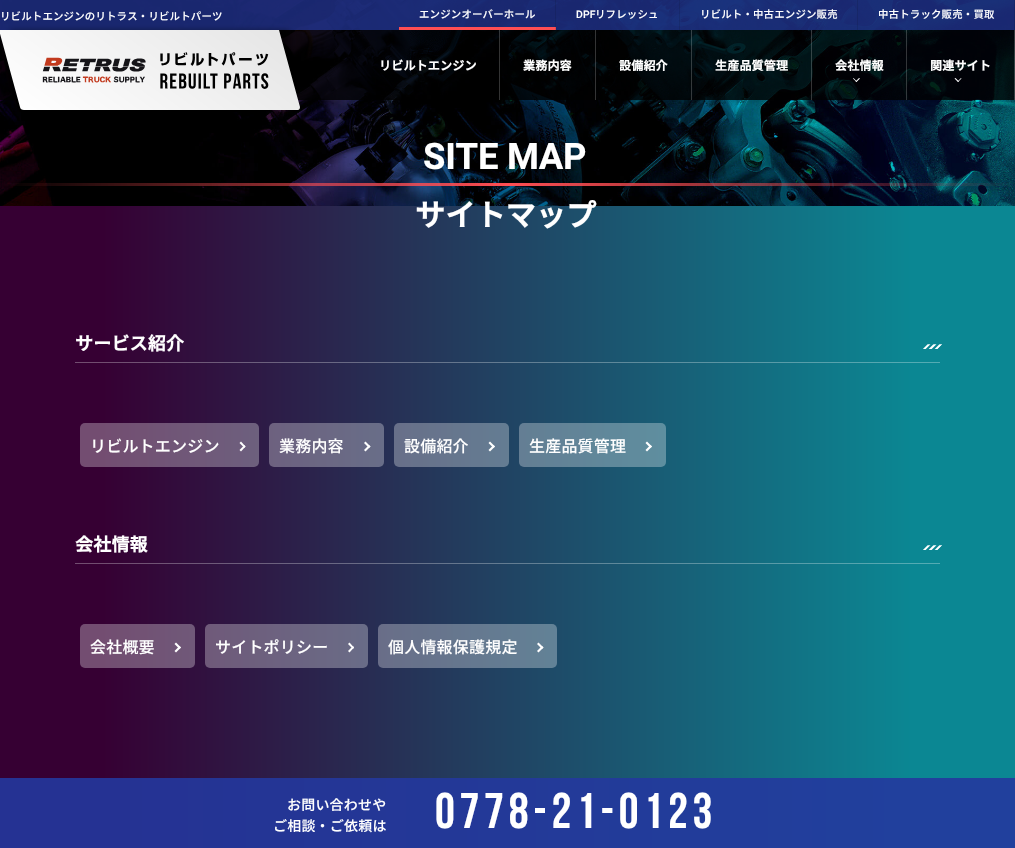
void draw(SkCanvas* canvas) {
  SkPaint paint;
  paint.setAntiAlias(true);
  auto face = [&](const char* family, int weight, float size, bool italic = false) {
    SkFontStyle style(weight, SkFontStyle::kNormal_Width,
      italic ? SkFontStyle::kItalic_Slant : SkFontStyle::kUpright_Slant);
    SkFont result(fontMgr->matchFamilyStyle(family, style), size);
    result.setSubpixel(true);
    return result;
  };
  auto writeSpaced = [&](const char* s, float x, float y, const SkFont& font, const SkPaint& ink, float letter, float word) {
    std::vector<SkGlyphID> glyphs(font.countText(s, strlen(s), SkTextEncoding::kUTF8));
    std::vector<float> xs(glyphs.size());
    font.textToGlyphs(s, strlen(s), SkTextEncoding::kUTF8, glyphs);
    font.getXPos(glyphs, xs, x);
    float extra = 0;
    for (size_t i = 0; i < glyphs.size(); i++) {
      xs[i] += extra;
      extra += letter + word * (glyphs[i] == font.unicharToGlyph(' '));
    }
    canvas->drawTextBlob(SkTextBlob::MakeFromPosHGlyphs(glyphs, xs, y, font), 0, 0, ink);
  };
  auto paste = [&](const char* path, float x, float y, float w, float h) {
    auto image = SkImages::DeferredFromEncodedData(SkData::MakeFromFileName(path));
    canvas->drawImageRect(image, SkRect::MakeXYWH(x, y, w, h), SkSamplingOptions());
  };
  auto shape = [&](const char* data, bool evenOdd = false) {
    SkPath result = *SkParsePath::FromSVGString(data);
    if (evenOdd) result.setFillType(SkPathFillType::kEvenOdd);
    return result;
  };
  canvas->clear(0xffffffff);
  {
    const SkColor colors[] = {0xff360033, 0xff0b8793};
    const float stops[] = {0.1f, 0.9f};
    const SkPoint ends[] = {{0, 424}, {1015, 424}};
    paint.setShader(SkGradientShader::MakeLinear(ends, colors, stops, 2, SkTileMode::kClamp));
    paint.setAlpha(255);
  }
  canvas->drawRect(SkRect::MakeXYWH(0, 206, 1015, 572), paint);
  {
    const SkColor colors[] = {0xff253293, 0xff21409d};
    const float stops[] = {0.1f, 0.9f};
    const SkPoint ends[] = {{0, 424}, {1015, 424}};
    paint.setShader(SkGradientShader::MakeLinear(ends, colors, stops, 2, SkTileMode::kClamp));
    paint.setAlpha(255);
  }
  canvas->drawRect(SkRect::MakeXYWH(0, 778, 1015, 70), paint);
  {
    const SkColor colors[] = {0xff724d70, 0xff54abb3};
    const float stops[] = {0.1f, 0.9f};
    const SkPoint ends[] = {{0, 424}, {1015, 424}};
    paint.setShader(SkGradientShader::MakeLinear(ends, colors, stops, 2, SkTileMode::kClamp));
    paint.setAlpha(255);
  }
  canvas->drawRect(SkRect::MakeXYWH(75, 563, 865, 1), paint);
  canvas->drawRect(SkRect::MakeXYWH(75, 362, 865, 1), paint);
  paste("img/2.png", 0, 0, 1015, 206);
  paint.setShader(nullptr);
  paint.setColor(0xcc000000);
  canvas->drawRect(SkRect::MakeXYWH(0, 0, 1015, 100), paint);
  paint.setColor(0xb323389e);
  canvas->drawRect(SkRect::MakeXYWH(0, 0, 1015, 30), paint);
  {
    const SkColor colors[] = {0x00120174, 0x00ff4e53, 0xffff4e53, 0xffff4e53};
    const float stops[] = {0, 0.9f, 0.9f, 1};
    const SkPoint ends[] = {{477, 0}, {477, 30}};
    paint.setShader(SkGradientShader::MakeLinear(ends, colors, stops, 4, SkTileMode::kClamp));
    paint.setAlpha(255);
  }
  canvas->drawRect(SkRect::MakeXYWH(399, 27, 157, 3), paint);
  paint.setShader(nullptr);
  {
    const struct { float x, y, w, h; SkColor color; } items[] = {
      {555, 0, 1, 30, 0x1a000000},
      {679, 0, 1, 30, 0x1a000000},
      {857, 0, 1, 30, 0x1a000000},
      {1014, 0, 1, 30, 0x1a000000},
    };
    for (auto [x, y, w, h, color] : items) {
      paint.setColor(color);
      canvas->drawRect(SkRect::MakeXYWH(x, y, w, h), paint);
    }
  }
  paint.setColor(0x80000000);
  paint.setMaskFilter(SkMaskFilter::MakeBlur(kNormal_SkBlurStyle, 3));
  canvas->drawRoundRect(SkRect::MakeXYWH(10, 31, 280, 80), 3, 3, paint);
  paint.setMaskFilter(nullptr);
  {
    const SkColor colors[] = {0xffffffff, 0xffe5e5e5};
    const float stops[] = {0, 1};
    const SkPoint ends[] = {{84, 160}, {216, -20}};
    paint.setShader(SkGradientShader::MakeLinear(ends, colors, stops, 2, SkTileMode::kClamp));
    paint.setAlpha(255);
  }
  canvas->drawPath(shape("M-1 30H279L300 107C300 109 299 110 298 110H24C22 110 20 109 20 107Z"), paint);
  paste("img/1.png", 42, 52, 227, 37);
  paint.setShader(nullptr);
  {
    const struct { float x, y, w, h; SkColor color; } items[] = {
      {499, 30, 1, 70, 0x33ffffff},
      {595, 30, 1, 70, 0x33ffffff},
      {691, 30, 1, 70, 0x33ffffff},
      {811, 30, 1, 70, 0x33ffffff},
      {906, 30, 1, 70, 0x33ffffff},
    };
    for (auto [x, y, w, h, color] : items) {
      paint.setColor(color);
      canvas->drawRect(SkRect::MakeXYWH(x, y, w, h), paint);
    }
  }
  paint.setColor(0xffffffff);
  canvas->drawPath(shape("M860 78.5L856.5 82L855.5 81.5L859 78Z"), paint);
  canvas->drawPath(shape("M857 81.5L856.5 82L853 78.5L853.5 78Z"), paint);
  paint.setColor(0x33ffffff);
  canvas->drawRect(SkRect::MakeXYWH(1014, 30, 1, 70), paint);
  paint.setColor(0xffffffff);
  canvas->drawPath(shape("M961.5 78.5L958 82L957.5 81.5L961 78Z"), paint);
  canvas->drawPath(shape("M959 81.5L958 82L954.5 78.5L955.5 78Z"), paint);
  paste("img/3.png", 923, 344, 19, 5);
  paint.setColor(0x4dffffff);
  canvas->drawRoundRect(SkRect::MakeXYWH(80, 423, 179, 44), 5, 5, paint);
  paint.setColor(0xffffffff);
  canvas->drawPath(shape("M241 441.5L245.5 446.5L244.5 448L239.5 443Z"), paint);
  canvas->drawPath(shape("M244.5 445L245.5 446.5L241 451.5L239.5 450Z"), paint);
  paint.setColor(0x4dffffff);
  canvas->drawRoundRect(SkRect::MakeXYWH(269, 423, 115, 44), 5, 5, paint);
  paint.setColor(0xffffffff);
  canvas->drawPath(shape("M365.5 441.5L370.5 446.5L369 448L364 443Z"), paint);
  canvas->drawPath(shape("M369 445L370.5 446.5L365.5 451.5L364 450Z"), paint);
  paint.setColor(0x4dffffff);
  canvas->drawRoundRect(SkRect::MakeXYWH(394, 423, 115, 44), 5, 5, paint);
  paint.setColor(0xffffffff);
  canvas->drawPath(shape("M490 441.5L495 446.5L493.5 448L488.5 443Z"), paint);
  canvas->drawPath(shape("M493.5 445L495 446.5L490 451.5L488.5 450Z"), paint);
  paint.setColor(0x4dffffff);
  canvas->drawRoundRect(SkRect::MakeXYWH(519, 423, 147, 44), 5, 5, paint);
  paint.setColor(0xffffffff);
  canvas->drawPath(shape("M647 441.5L652 446.5L650.5 448L645.5 443Z"), paint);
  canvas->drawPath(shape("M650.5 445L652 446.5L647 451.5L645.5 450Z"), paint);
  paste("img/3.png", 923, 545, 19, 5);
  paint.setColor(0x4dffffff);
  canvas->drawRoundRect(SkRect::MakeXYWH(80, 624, 115, 44), 5, 5, paint);
  paint.setColor(0xffffffff);
  canvas->drawPath(shape("M176 642.5L181 647.5L179.5 649L174.5 644Z"), paint);
  canvas->drawPath(shape("M179.5 646L181 647.5L176 652.5L174.5 651Z"), paint);
  paint.setColor(0x4dffffff);
  canvas->drawRoundRect(SkRect::MakeXYWH(205, 624, 163, 44), 5, 5, paint);
  paint.setColor(0xffffffff);
  canvas->drawPath(shape("M349.5 642.5L354 647.5L353 649L348 644Z"), paint);
  canvas->drawPath(shape("M353 646L354 647.5L349.5 652.5L348 651Z"), paint);
  paint.setColor(0x4dffffff);
  canvas->drawRoundRect(SkRect::MakeXYWH(378, 624, 179, 44), 5, 5, paint);
  paint.setColor(0xffffffff);
  canvas->drawPath(shape("M538.5 642.5L543.5 647.5L542 649L537 644Z"), paint);
  canvas->drawPath(shape("M542 646L543.5 647.5L538.5 652.5L537 651Z"), paint);
  auto f0 = face("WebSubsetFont", 500, 10.4f);
  writeSpaced("リビルトエンジンのリトラス・リビルトパーツ", 0, 20, f0, paint, 0.2f, 0);
  writeSpaced("エンジンオーバーホール", 419, 18, f0, paint, 0.2f, 0);
  auto f1 = face("Roboto", 500, 10.4f);
  writeSpaced("DPF", 576, 18, f1, paint, 0.2f, 0);
  {
    const struct { const char* s; float x, y; } items[] = {
      {"リフレッシュ", 595, 18},
      {"リビルト・中古エンジン販売", 700, 18},
      {"中古トラック販売・買取", 878, 18},
    };
    for (auto [s, x, y] : items) {
      writeSpaced(s, x, y, f0, paint, 0.2f, 0);
    }
  }
  auto f2 = face("WebSubsetFont", 700, 12);
  {
    const struct { const char* s; float x, y; } items[] = {
      {"リビルトエンジン", 379, 70},
      {"業務内容", 523, 70},
      {"設備紹介", 619, 70},
      {"生産品質管理", 715, 70},
      {"会社情報", 835, 70},
      {"関連サイト", 930, 70},
    };
    for (auto [s, x, y] : items) {
      writeSpaced(s, x, y, f2, paint, 0.2f, 0);
    }
  }
  auto f3 = face("Roboto", 700, 36.5f);
  writeSpaced("SITE MAP", 423, 169, f3, paint, -0.25f, 0);
  auto f4 = face("WebSubsetFont", 700, 30);
  writeSpaced("サイトマップ", 415, 226, f4, paint, 0.2f, 0);
  auto f5 = face("WebSubsetFont", 700, 18);
  writeSpaced("サービス紹介", 75, 350, f5, paint, 0.2f, 0);
  auto f6 = face("WebSubsetFont", 500, 16);
  {
    const struct { const char* s; float x, y; } items[] = {
      {"リビルトエンジン", 90, 452},
      {"業務内容", 279, 452},
      {"設備紹介", 404, 452},
      {"生産品質管理", 529, 452},
    };
    for (auto [s, x, y] : items) {
      writeSpaced(s, x, y, f6, paint, 0.2f, 0);
    }
  }
  writeSpaced("会社情報", 75, 551, f5, paint, 0.2f, 0);
  {
    const struct { const char* s; float x, y; } items[] = {
      {"会社概要", 90, 653},
      {"サイトポリシー", 215, 653},
      {"個人情報保護規定", 388, 653},
    };
    for (auto [s, x, y] : items) {
      writeSpaced(s, x, y, f6, paint, 0.2f, 0);
    }
  }
  auto f7 = face("WebSubsetFont", 500, 14);
  writeSpaced("お問い合わせや", 287, 810, f7, paint, 0.2f, 0);
  writeSpaced("ご相談・ご依頼は", 273, 831, f7, paint, 0.2f, 0);
  auto f8 = face("Bebas Neue", 700, 50);
  writeSpaced("0778-21-0123", 435, 828, f8, paint, 4.75f, 0);
}
